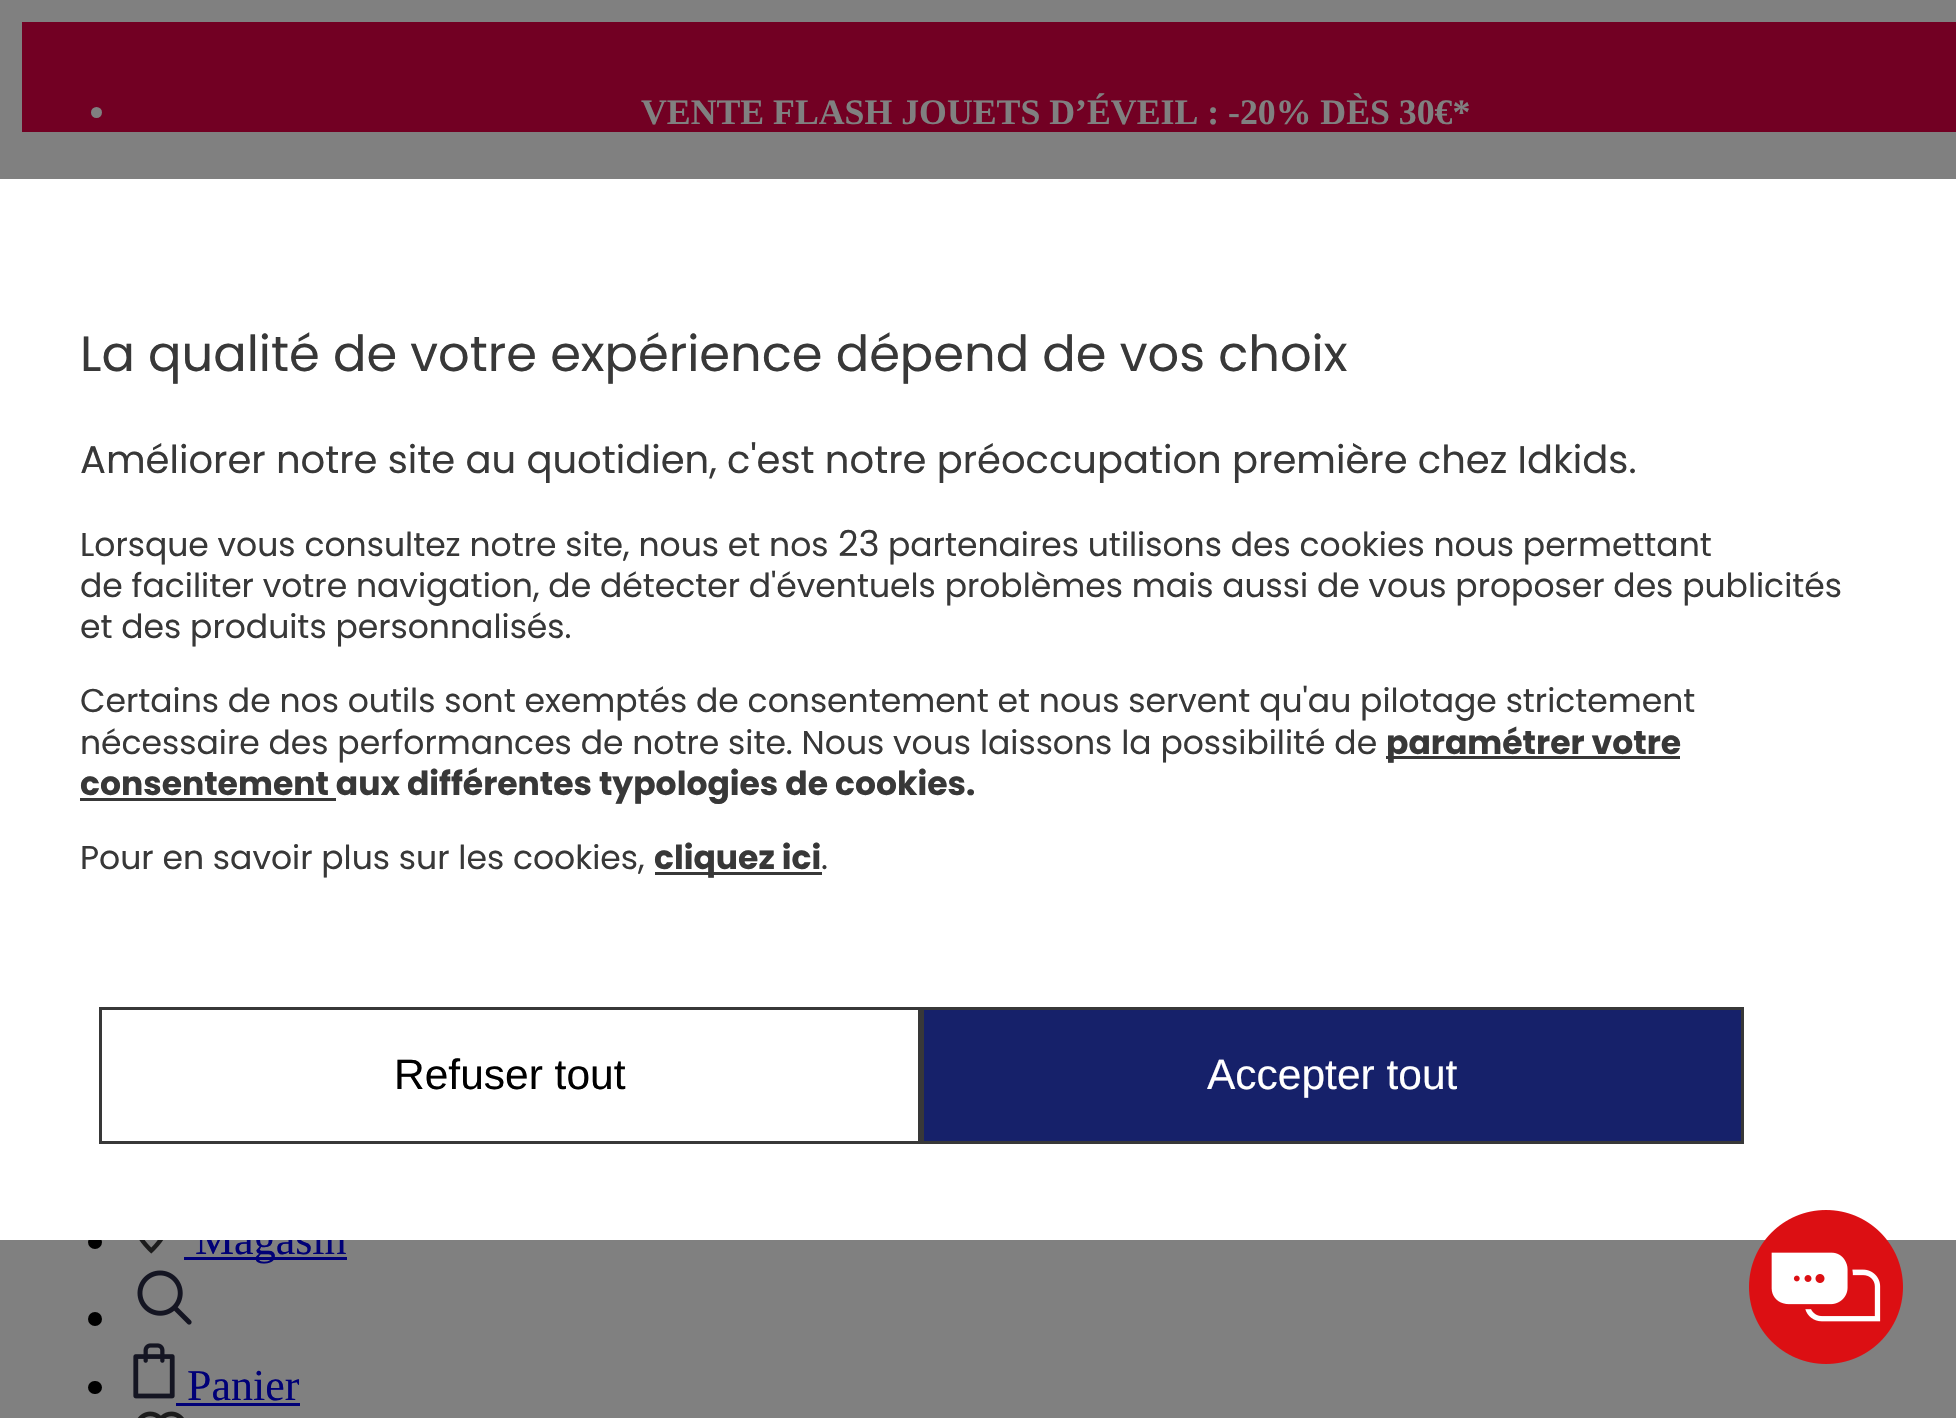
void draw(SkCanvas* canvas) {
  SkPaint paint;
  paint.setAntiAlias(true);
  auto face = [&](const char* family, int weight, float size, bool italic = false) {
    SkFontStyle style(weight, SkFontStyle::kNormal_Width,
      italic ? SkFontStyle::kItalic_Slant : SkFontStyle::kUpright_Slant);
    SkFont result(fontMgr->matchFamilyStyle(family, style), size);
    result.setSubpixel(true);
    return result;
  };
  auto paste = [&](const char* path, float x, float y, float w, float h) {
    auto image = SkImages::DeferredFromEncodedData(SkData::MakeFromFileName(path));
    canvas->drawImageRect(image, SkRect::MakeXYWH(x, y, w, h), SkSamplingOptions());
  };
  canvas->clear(0xff808080);
  paint.setColor(0xff720023);
  canvas->drawRect(SkRect::MakeXYWH(22, 22, 1934, 110), paint);
  paint.setColor(0xff808080);
  canvas->drawCircle(96.5f, 112.5f, 5.5f, paint);
  paint.setColor(0xff000000);
  canvas->drawCircle(95, 1242, 7, paint);
  paste("img/1.png", 139, 1240, 25, 14);
  paint.setColor(0xff000077);
  canvas->drawRect(SkRect::MakeXYWH(184, 1257, 163, 3), paint);
  paint.setColor(0xff000000);
  canvas->drawCircle(95, 1319, 7, paint);
  paste("img/2.png", 137, 1270, 55, 55);
  canvas->drawRoundRect(SkRect::MakeXYWH(88, 1381, 14, 13), 6.5f, 6.5f, paint);
  paste("img/3.png", 133, 1343, 42, 56);
  paint.setColor(0xff000077);
  canvas->drawRect(SkRect::MakeXYWH(176, 1403, 124, 3), paint);
  paste("img/4.png", 137, 1411, 47, 7);
  auto f0 = face("Liberation Serif", 700, 35.75f);
  paint.setColor(0xff808080);
  canvas->drawString("VENTE FLASH JOUETS D’ÉVEIL : -20% DÈS 30€*", 641, 124, f0, paint);
  auto f1 = face("Liberation Serif", 400, 44);
  paint.setColor(0xff000077);
  canvas->drawString("Magasin", 195, 1254, f1, paint);
  paint.setColor(0xffffffff);
  canvas->drawRect(SkRect::MakeXYWH(0, 179, 1956, 1061), paint);
  paint.setColor(0xff16216a);
  canvas->drawRect(SkRect::MakeXYWH(922.5f, 1008.5f, 820, 134), paint);
  paint.setStroke(true);
  paint.setStrokeWidth(3);
  paint.setColor(0xff383838);
  canvas->drawRect(SkRect::MakeXYWH(922.5f, 1008.5f, 820, 134), paint);
  auto f2 = face("Liberation Sans", 400, 42.5f);
  paint.setStroke(false);
  paint.setColor(0xffffffff);
  canvas->drawString("Accepter tout", 1207, 1089, f2, paint);
  paint.setStroke(true);
  paint.setColor(0xff383838);
  canvas->drawRect(SkRect::MakeXYWH(100.5f, 1008.5f, 819, 134), paint);
  paint.setStroke(false);
  paint.setColor(0xff000000);
  canvas->drawString("Refuser tout", 394, 1089, f2, paint);
  auto f3 = face("Poppins", 400, 33);
  paint.setColor(0xff383838);
  canvas->drawString(".", 821, 869, f3, paint);
  canvas->drawRect(SkRect::MakeXYWH(655, 872, 167, 3), paint);
  auto f4 = face("Poppins", 700, 33);
  canvas->drawString("cliquez ici", 654, 869, f4, paint);
  canvas->drawString("Pour en savoir plus sur les cookies,", 80, 869, f3, paint);
  canvas->drawRect(SkRect::MakeXYWH(80, 798, 256, 3), paint);
  canvas->drawString("consentement aux différentes typologies de cookies.", 80, 795, f4, paint);
  canvas->drawRect(SkRect::MakeXYWH(1386, 756, 294, 3), paint);
  canvas->drawString("paramétrer votre", 1386, 754, f4, paint);
  {
    const struct { const char* s; float x, y; } items[] = {
      {"nécessaire des performances de notre site. Nous vous laissons la possibilité de", 80, 754},
      {"Certains de nos outils sont exemptés de consentement et nous servent qu'au pilotage strictement", 80, 712},
      {"et des produits personnalisés.", 80, 638},
      {"de faciliter votre navigation, de détecter d'éventuels problèmes mais aussi de vous proposer des publicités", 80, 597},
      {"partenaires utilisons des cookies nous permettant", 888, 556},
    };
    for (auto [s, x, y] : items) {
      canvas->drawString(s, x, y, f3, paint);
    }
  }
  auto f5 = face("Poppins", 400, 35.75f);
  canvas->drawString("23", 838, 556, f5, paint);
  canvas->drawString("Lorsque vous consultez notre site, nous et nos", 80, 556, f3, paint);
  auto f6 = face("Poppins", 400, 38.5f);
  canvas->drawString("Améliorer notre site au quotidien, c'est notre préoccupation première chez Idkids.", 80, 473, f6, paint);
  auto f7 = face("Poppins", 400, 49.5f);
  canvas->drawString("La qualité de votre expérience dépend de vos choix", 80, 371, f7, paint);
  paint.setColor(0xff000077);
  canvas->drawString("Panier", 187, 1400, f1, paint);
  paste("img/5.png", 1749, 1210, 154, 154);
}
